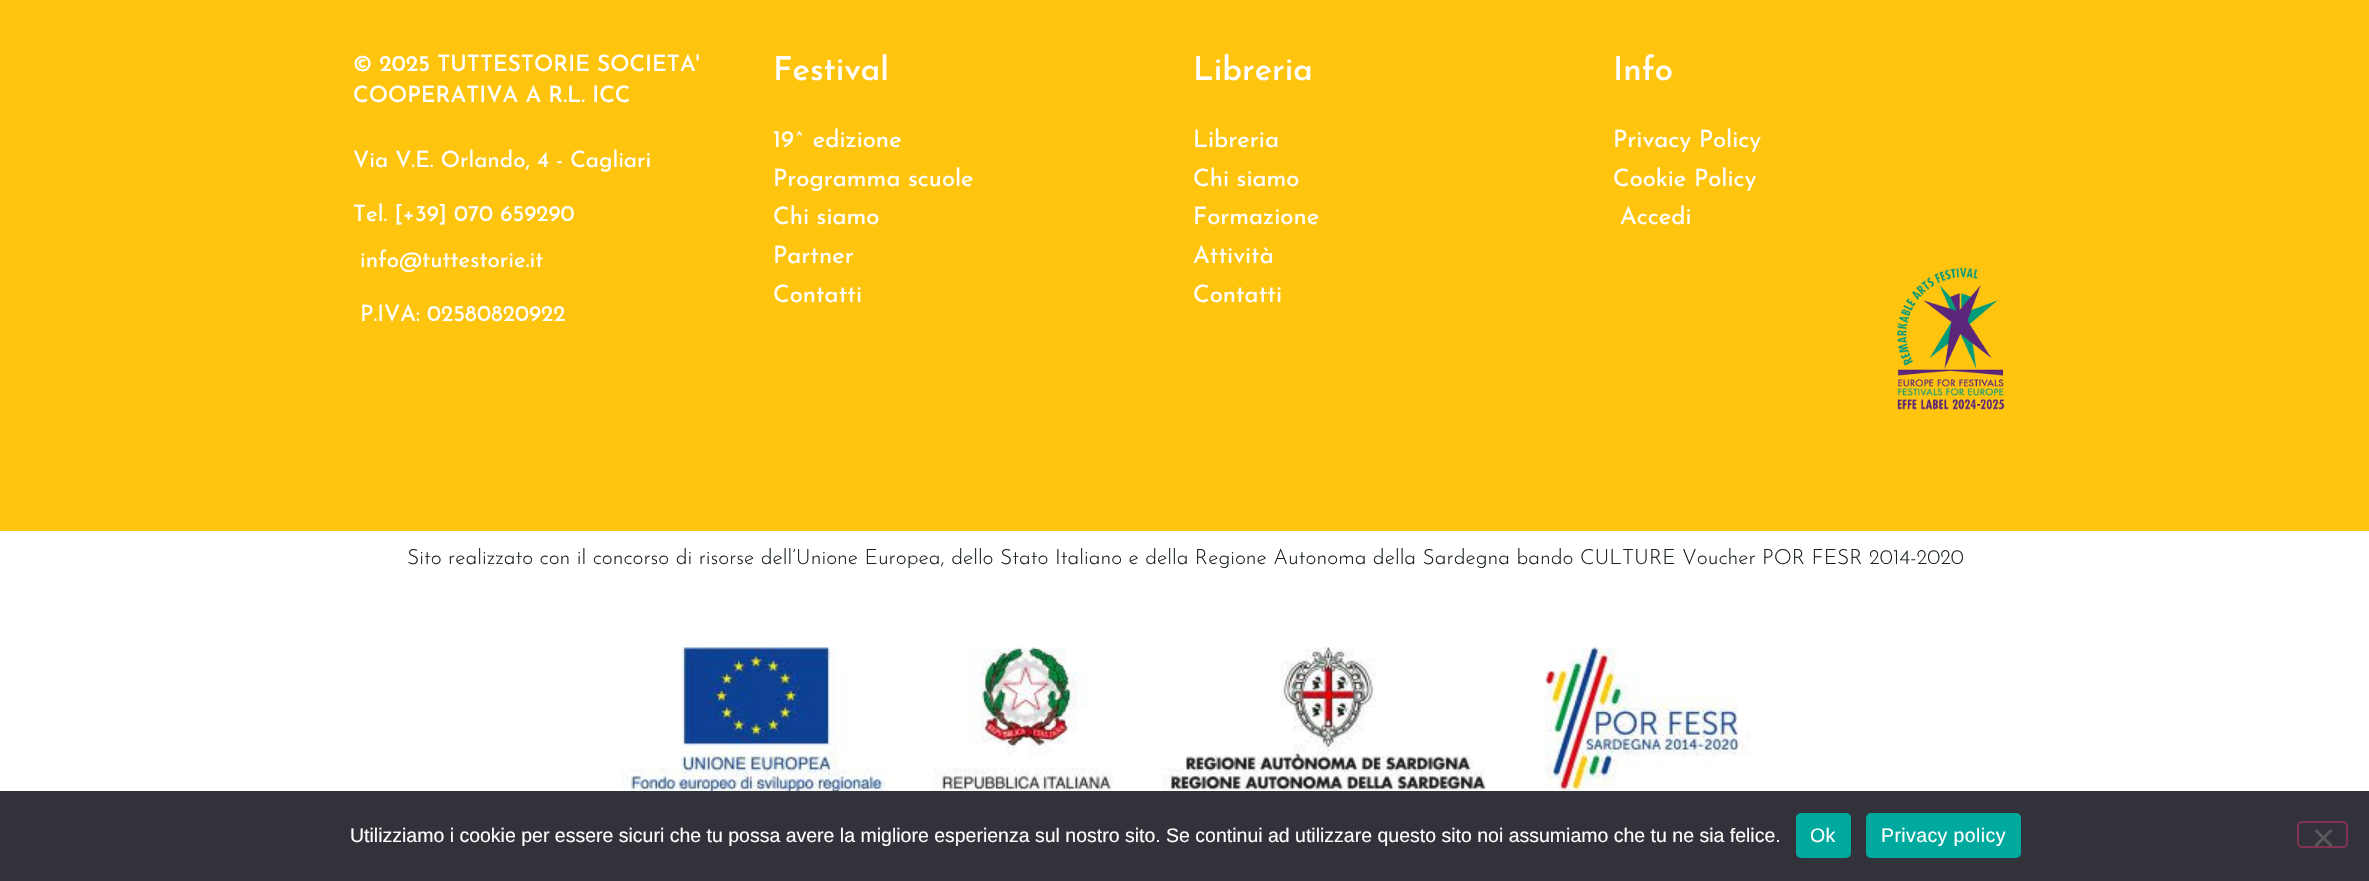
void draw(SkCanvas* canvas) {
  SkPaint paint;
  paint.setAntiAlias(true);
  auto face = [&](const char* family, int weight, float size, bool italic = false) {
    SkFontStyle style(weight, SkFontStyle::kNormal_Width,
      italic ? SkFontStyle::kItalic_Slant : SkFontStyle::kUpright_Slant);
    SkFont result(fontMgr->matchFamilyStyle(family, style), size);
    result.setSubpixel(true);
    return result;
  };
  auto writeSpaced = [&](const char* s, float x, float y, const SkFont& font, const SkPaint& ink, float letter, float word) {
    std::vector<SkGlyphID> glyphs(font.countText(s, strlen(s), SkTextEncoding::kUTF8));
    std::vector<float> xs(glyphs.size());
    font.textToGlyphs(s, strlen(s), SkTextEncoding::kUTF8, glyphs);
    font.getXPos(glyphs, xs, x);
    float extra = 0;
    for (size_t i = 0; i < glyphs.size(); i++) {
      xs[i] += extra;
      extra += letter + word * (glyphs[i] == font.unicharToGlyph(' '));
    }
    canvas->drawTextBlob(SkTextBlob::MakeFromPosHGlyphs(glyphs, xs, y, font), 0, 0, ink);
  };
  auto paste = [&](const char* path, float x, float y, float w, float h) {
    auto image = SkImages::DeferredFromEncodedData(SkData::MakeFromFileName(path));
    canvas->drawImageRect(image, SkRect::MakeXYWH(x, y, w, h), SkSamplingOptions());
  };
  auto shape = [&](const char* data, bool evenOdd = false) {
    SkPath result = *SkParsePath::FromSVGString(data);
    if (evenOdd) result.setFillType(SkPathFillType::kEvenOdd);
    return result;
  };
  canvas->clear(0xffffffff);
  paint.setColor(0xffffc40e);
  canvas->drawRect(SkRect::MakeXYWH(0, 0, 2369, 531), paint);
  paste("img/1.png", 1897, 267, 108, 143);
  paste("img/2.png", 621, 645, 1128, 146);
  paint.setColor(0xff32323a);
  canvas->drawRect(SkRect::MakeXYWH(0, 791, 2369, 90), paint);
  paint.setColor(0xff00a99d);
  canvas->drawRoundRect(SkRect::MakeXYWH(1796, 813, 55, 45), 5, 5, paint);
  canvas->drawRoundRect(SkRect::MakeXYWH(1866, 813, 155, 45), 5, 5, paint);
  paint.setStroke(true);
  paint.setStrokeWidth(2);
  paint.setColor(0xff7f3350);
  canvas->drawRoundRect(SkRect::MakeXYWH(2298, 822, 49, 25), 4, 4, paint);
  paint.setStroke(false);
  paint.setColor(0xff59595d);
  canvas->drawPath(shape("M2330.5 829L2332.5 831L2316.5 847L2314.5 845Z"), paint);
  canvas->drawPath(shape("M2314.5 831L2316.5 829L2332.5 845L2330.5 847Z"), paint);
  auto f0 = face("Josefin Sans", 500, 22.5f);
  paint.setColor(0xffffffff);
  canvas->drawString("© 2025 TUTTESTORIE SOCIETA'", 353, 71, f0, paint);
  canvas->drawString("COOPERATIVA A R.L. ICC", 353, 102, f0, paint);
  auto f1 = face("Josefin Sans", 400, 22.5f);
  {
    const struct { const char* s; float x, y; } items[] = {
      {"Via V.E. Orlando, 4 - Cagliari", 353, 167},
      {"Tel. [+39] 070 659290", 353, 221},
      {"info@tuttestorie.it", 360, 267},
      {"P.IVA: 02580820922", 360, 321},
    };
    for (auto [s, x, y] : items) {
      canvas->drawString(s, x, y, f1, paint);
    }
  }
  auto f2 = face("Josefin Sans", 500, 33);
  canvas->drawString("Festival", 773, 80, f2, paint);
  auto f3 = face("Josefin Sans", 400, 24);
  {
    const struct { const char* s; float x, y; } items[] = {
      {"19^ edizione", 773, 147},
      {"Programma scuole", 773, 186},
      {"Chi siamo", 773, 224},
      {"Partner", 773, 263},
      {"Contatti", 773, 302},
    };
    for (auto [s, x, y] : items) {
      canvas->drawString(s, x, y, f3, paint);
    }
  }
  canvas->drawString("Libreria", 1193, 80, f2, paint);
  {
    const struct { const char* s; float x, y; } items[] = {
      {"Libreria", 1193, 147},
      {"Chi siamo", 1193, 186},
      {"Formazione", 1193, 224},
      {"Attività", 1193, 263},
      {"Contatti", 1193, 302},
    };
    for (auto [s, x, y] : items) {
      canvas->drawString(s, x, y, f3, paint);
    }
  }
  canvas->drawString("Info", 1613, 80, f2, paint);
  {
    const struct { const char* s; float x, y; } items[] = {
      {"Privacy Policy", 1613, 147},
      {"Cookie Policy", 1613, 186},
      {"Accedi", 1620, 224},
    };
    for (auto [s, x, y] : items) {
      canvas->drawString(s, x, y, f3, paint);
    }
  }
  auto f4 = face("Josefin Sans", 300, 21);
  paint.setColor(0xff192223);
  canvas->drawString("Sito realizzato con il concorso di risorse dell’Unione Europea, dello Stato Italiano e della Regione Autonoma della Sardegna bando CULTURE Voucher POR FESR 2014-2020", 407, 564, f4, paint);
  auto f5 = face("Liberation Sans", 400, 19.5f);
  paint.setColor(0xffffffff);
  canvas->drawString("Utilizziamo i cookie per essere sicuri che tu possa avere la migliore esperienza sul nostro sito. Se continui ad utilizzare questo sito noi assumiamo che tu ne sia felice.", 350, 842, f5, paint);
  writeSpaced("Ok", 1810, 842, f5, paint, 0.4f, 0);
  writeSpaced("Privacy policy", 1881, 842, f5, paint, 0.4f, 0);
}
